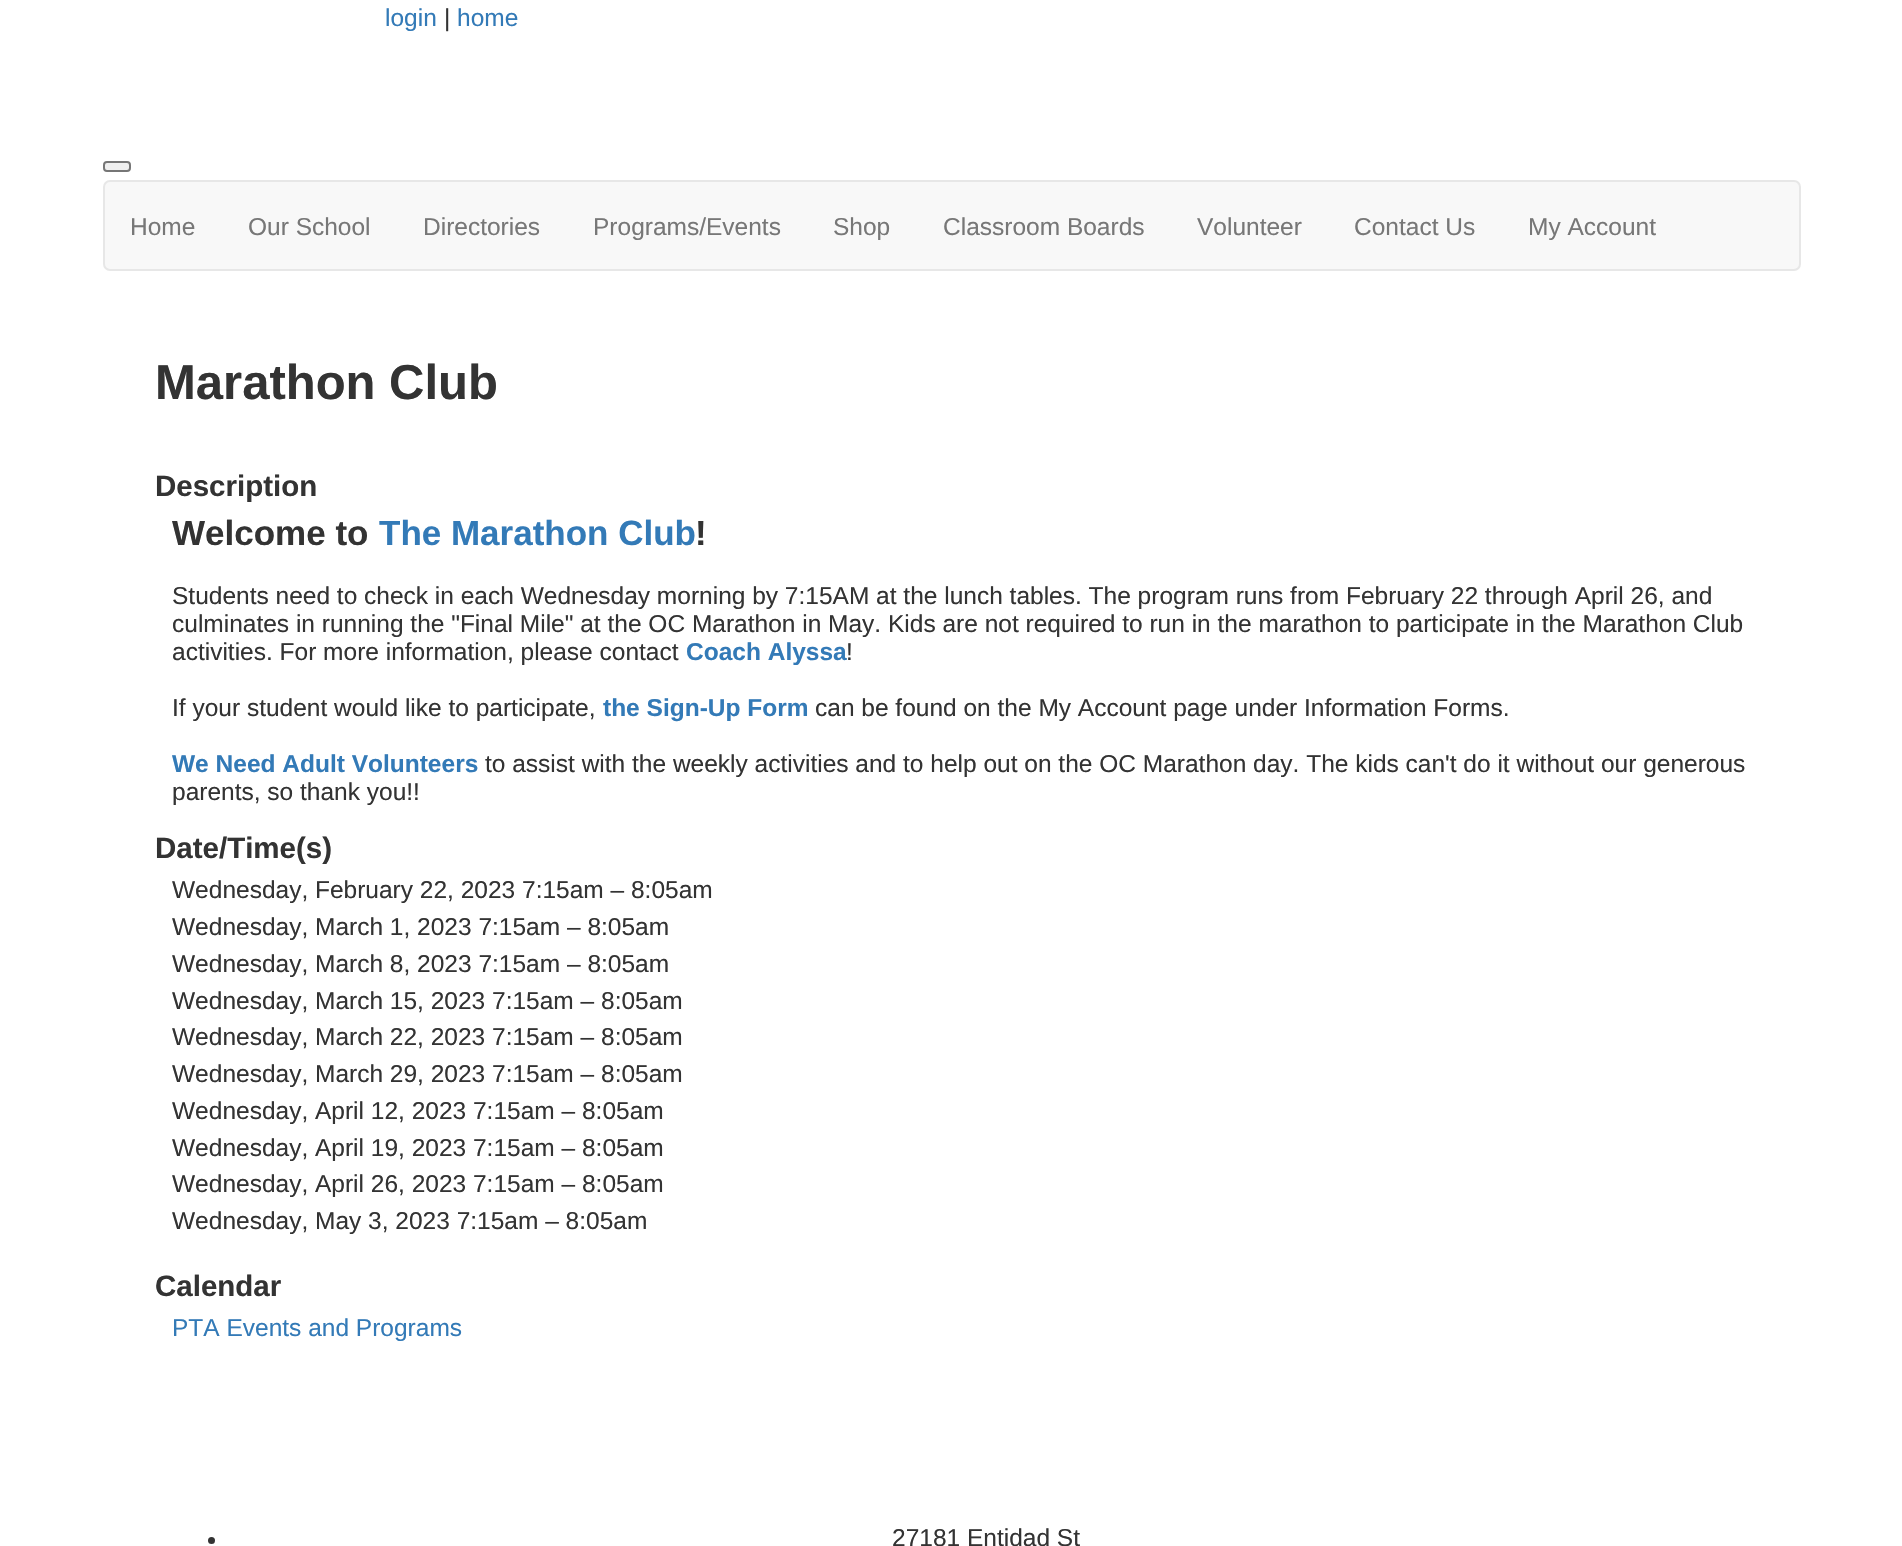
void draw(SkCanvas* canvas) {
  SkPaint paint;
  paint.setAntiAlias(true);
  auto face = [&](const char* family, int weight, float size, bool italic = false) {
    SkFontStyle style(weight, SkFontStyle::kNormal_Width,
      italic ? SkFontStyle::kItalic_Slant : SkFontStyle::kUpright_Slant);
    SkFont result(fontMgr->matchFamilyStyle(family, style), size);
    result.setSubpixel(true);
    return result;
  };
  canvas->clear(0xffffffff);
  paint.setColor(0xffefefef);
  canvas->drawRoundRect(SkRect::MakeXYWH(104, 162, 26, 9), 3, 3, paint);
  paint.setStroke(true);
  paint.setStrokeWidth(2);
  paint.setColor(0xff767676);
  canvas->drawRoundRect(SkRect::MakeXYWH(104, 162, 26, 9), 3, 3, paint);
  paint.setStroke(false);
  paint.setColor(0xfff8f8f8);
  canvas->drawRoundRect(SkRect::MakeXYWH(104, 181, 1696, 89), 6, 6, paint);
  paint.setStroke(true);
  paint.setColor(0xffe7e7e7);
  canvas->drawRoundRect(SkRect::MakeXYWH(104, 181, 1696, 89), 6, 6, paint);
  paint.setStroke(false);
  paint.setColor(0xff333333);
  canvas->drawCircle(211.5f, 1540.5f, 3.5f, paint);
  auto f0 = face("Liberation Sans", 400, 24.5f);
  paint.setColor(0xff337ab7);
  canvas->drawString("login", 385, 26, f0, paint);
  paint.setColor(0xff333333);
  canvas->drawString("|", 444, 26, f0, paint);
  paint.setColor(0xff337ab7);
  canvas->drawString("home", 457, 26, f0, paint);
  paint.setColor(0xff777777);
  {
    const struct { const char* s; float x, y; } items[] = {
      {"Home", 130, 235},
      {"Our School", 248, 235},
      {"Directories", 423, 235},
      {"Programs/Events", 593, 235},
      {"Shop", 833, 235},
      {"Classroom Boards", 943, 235},
      {"Volunteer", 1197, 235},
      {"Contact Us", 1354, 235},
      {"My Account", 1528, 235},
    };
    for (auto [s, x, y] : items) {
      canvas->drawString(s, x, y, f0, paint);
    }
  }
  auto f1 = face("Liberation Sans", 700, 49);
  paint.setColor(0xff333333);
  canvas->drawString("Marathon Club", 155, 399, f1, paint);
  auto f2 = face("Liberation Sans", 700, 29.5f);
  canvas->drawString("Description", 155, 496, f2, paint);
  auto f3 = face("Liberation Sans", 700, 35);
  canvas->drawString("Welcome to", 172, 545, f3, paint);
  paint.setColor(0xff337ab7);
  canvas->drawString("The Marathon Club", 379, 545, f3, paint);
  paint.setColor(0xff333333);
  canvas->drawString("!", 695, 545, f3, paint);
  {
    const struct { const char* s; float x, y; } items[] = {
      {"Students need to check in each Wednesday morning by 7:15AM at the lunch tables. The program runs from February 22 through April 26, and", 172, 604},
      {"culminates in running the \"Final Mile\" at the OC Marathon in May. Kids are not required to run in the marathon to participate in the Marathon Club", 172, 632},
      {"activities. For more information, please contact", 172, 660},
    };
    for (auto [s, x, y] : items) {
      canvas->drawString(s, x, y, f0, paint);
    }
  }
  auto f4 = face("Liberation Sans", 700, 24.5f);
  paint.setColor(0xff337ab7);
  canvas->drawString("Coach Alyssa", 686, 660, f4, paint);
  paint.setColor(0xff333333);
  canvas->drawString("!", 846, 660, f0, paint);
  canvas->drawString("If your student would like to participate,", 172, 716, f0, paint);
  paint.setColor(0xff337ab7);
  canvas->drawString("the Sign-Up Form", 603, 716, f4, paint);
  paint.setColor(0xff333333);
  canvas->drawString("can be found on the My Account page under Information Forms.", 815, 716, f0, paint);
  paint.setColor(0xff337ab7);
  canvas->drawString("We Need Adult Volunteers", 172, 772, f4, paint);
  paint.setColor(0xff333333);
  canvas->drawString("to assist with the weekly activities and to help out on the OC Marathon day. The kids can't do it without our generous", 485, 772, f0, paint);
  canvas->drawString("parents, so thank you!!", 172, 800, f0, paint);
  canvas->drawString("Date/Time(s)", 155, 858, f2, paint);
  {
    const struct { const char* s; float x, y; } items[] = {
      {"Wednesday, February 22, 2023 7:15am – 8:05am", 172, 898},
      {"Wednesday, March 1, 2023 7:15am – 8:05am", 172, 935},
      {"Wednesday, March 8, 2023 7:15am – 8:05am", 172, 972},
      {"Wednesday, March 15, 2023 7:15am – 8:05am", 172, 1009},
      {"Wednesday, March 22, 2023 7:15am – 8:05am", 172, 1045},
      {"Wednesday, March 29, 2023 7:15am – 8:05am", 172, 1082},
      {"Wednesday, April 12, 2023 7:15am – 8:05am", 172, 1119},
      {"Wednesday, April 19, 2023 7:15am – 8:05am", 172, 1156},
      {"Wednesday, April 26, 2023 7:15am – 8:05am", 172, 1192},
      {"Wednesday, May 3, 2023 7:15am – 8:05am", 172, 1229},
    };
    for (auto [s, x, y] : items) {
      canvas->drawString(s, x, y, f0, paint);
    }
  }
  canvas->drawString("Calendar", 155, 1296, f2, paint);
  paint.setColor(0xff337ab7);
  canvas->drawString("PTA Events and Programs", 172, 1336, f0, paint);
  paint.setColor(0xff333333);
  canvas->drawString("27181 Entidad St", 892, 1546, f0, paint);
}
